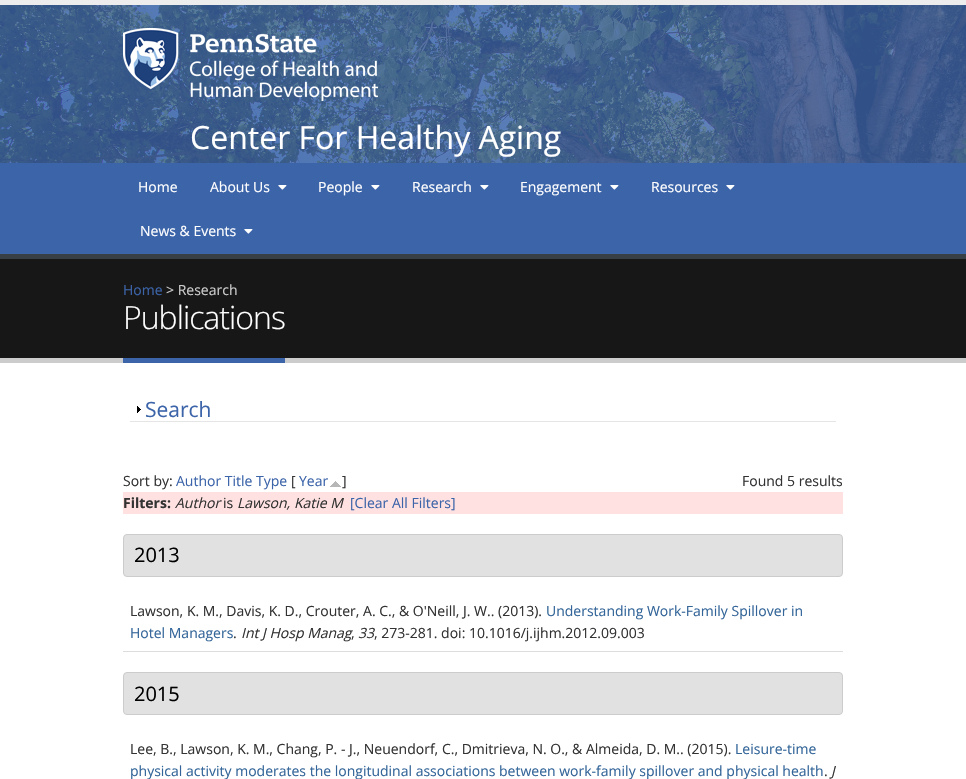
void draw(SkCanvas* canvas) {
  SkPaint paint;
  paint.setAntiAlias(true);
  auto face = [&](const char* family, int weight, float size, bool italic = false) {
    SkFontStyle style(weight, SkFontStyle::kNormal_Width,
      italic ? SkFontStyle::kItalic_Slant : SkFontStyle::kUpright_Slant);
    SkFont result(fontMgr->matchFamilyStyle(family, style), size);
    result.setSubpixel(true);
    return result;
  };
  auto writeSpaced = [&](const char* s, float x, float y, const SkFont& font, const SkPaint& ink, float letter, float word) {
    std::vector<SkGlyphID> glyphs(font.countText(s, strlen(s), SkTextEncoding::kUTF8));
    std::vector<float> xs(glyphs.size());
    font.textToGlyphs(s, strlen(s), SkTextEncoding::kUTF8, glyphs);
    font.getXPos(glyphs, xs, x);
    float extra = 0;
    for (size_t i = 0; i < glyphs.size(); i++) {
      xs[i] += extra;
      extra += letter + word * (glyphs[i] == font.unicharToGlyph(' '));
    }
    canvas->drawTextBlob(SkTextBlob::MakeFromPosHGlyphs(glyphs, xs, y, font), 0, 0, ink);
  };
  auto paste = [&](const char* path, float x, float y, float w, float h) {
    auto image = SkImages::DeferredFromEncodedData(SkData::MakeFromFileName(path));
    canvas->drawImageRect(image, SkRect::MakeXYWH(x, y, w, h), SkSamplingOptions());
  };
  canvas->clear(0xffffffff);
  paste("img/1.png", 0, 5, 966, 158);
  paint.setColor(0xffededed);
  canvas->drawRect(SkRect::MakeXYWH(0, 0, 966, 5), paint);
  paste("img/2.png", 123, 28, 255, 73);
  paint.setColor(0xff3c64a9);
  canvas->drawRect(SkRect::MakeXYWH(0, 163, 966, 91), paint);
  paste("img/3.png", 278, 185, 9, 5);
  paste("img/3.png", 371, 185, 9, 5);
  paste("img/3.png", 480, 185, 9, 5);
  paste("img/3.png", 610, 185, 9, 5);
  paste("img/3.png", 726, 185, 9, 5);
  paste("img/3.png", 244, 229, 9, 5);
  {
    const struct { float x, y, w, h; SkColor color; } items[] = {
      {0, 259, 966, 99, 0xff171717},
      {0, 254, 966, 5, 0xff384045},
      {0, 358, 966, 5, 0xffcccccc},
      {123, 358, 162, 5, 0xff3c64a9},
      {130, 421, 706, 1, 0xffe5e5e5},
    };
    for (auto [x, y, w, h, color] : items) {
      paint.setColor(color);
      canvas->drawRect(SkRect::MakeXYWH(x, y, w, h), paint);
    }
  }
  paste("img/4.png", 137, 406, 4, 7);
  paste("img/5.png", 330, 481, 11, 6);
  paint.setColor(0xffffe1e1);
  canvas->drawRect(SkRect::MakeXYWH(123, 492, 720, 22), paint);
  paint.setColor(0xffe1e1e1);
  canvas->drawRoundRect(SkRect::MakeXYWH(123.5f, 534.5f, 719, 42), 3.5f, 3.5f, paint);
  paint.setStroke(true);
  paint.setStrokeWidth(1);
  paint.setColor(0xffcccccc);
  canvas->drawRoundRect(SkRect::MakeXYWH(123.5f, 534.5f, 719, 42), 3.5f, 3.5f, paint);
  paint.setStroke(false);
  paint.setColor(0xffdddddd);
  canvas->drawRect(SkRect::MakeXYWH(123, 651, 720, 1), paint);
  paint.setColor(0xffe1e1e1);
  canvas->drawRoundRect(SkRect::MakeXYWH(123.5f, 672.5f, 719, 42), 3.5f, 3.5f, paint);
  paint.setStroke(true);
  paint.setColor(0xffcccccc);
  canvas->drawRoundRect(SkRect::MakeXYWH(123.5f, 672.5f, 719, 42), 3.5f, 3.5f, paint);
  auto f0 = face("Open Sans", 400, 32);
  paint.setStroke(false);
  paint.setColor(0xffffffff);
  canvas->drawString("Center For Healthy Aging", 190, 149, f0, paint);
  auto f1 = face("Open Sans", 400, 14);
  {
    const struct { const char* s; float x, y; } items[] = {
      {"Home", 138, 192},
      {"About Us", 210, 192},
      {"People", 318, 192},
      {"Research", 412, 192},
      {"Engagement", 520, 192},
      {"Resources", 651, 192},
      {"News & Events", 140, 236},
    };
    for (auto [s, x, y] : items) {
      canvas->drawString(s, x, y, f1, paint);
    }
  }
  paint.setColor(0xff3c64a9);
  canvas->drawString("Home", 123, 295, f1, paint);
  paint.setColor(0xffcccccc);
  canvas->drawString("> Research", 166, 295, f1, paint);
  auto f2 = face("Open Sans", 300, 32);
  paint.setColor(0xffffffff);
  writeSpaced("Publications", 123, 329, f2, paint, -1, 0);
  auto f3 = face("Open Sans", 400, 21);
  paint.setColor(0xff3c64a9);
  canvas->drawString("Search", 145, 417, f3, paint);
  paint.setColor(0xff333333);
  canvas->drawString("Sort by:", 123, 486, f1, paint);
  paint.setColor(0xff3c64a9);
  canvas->drawString("Author Title Type", 176, 486, f1, paint);
  paint.setColor(0xff333333);
  canvas->drawString("[", 291, 486, f1, paint);
  paint.setColor(0xff3c64a9);
  canvas->drawString("Year", 299, 486, f1, paint);
  paint.setColor(0xff333333);
  canvas->drawString("]", 342, 486, f1, paint);
  canvas->drawString("Found 5 results", 742, 486, f1, paint);
  auto f4 = face("Open Sans", 700, 14);
  canvas->drawString("Filters:", 123, 508, f4, paint);
  auto f5 = face("Open Sans", 400, 14, true);
  canvas->drawString("Author", 175, 508, f5, paint);
  canvas->drawString("is", 223, 508, f1, paint);
  canvas->drawString("Lawson, Katie M", 237, 508, f5, paint);
  paint.setColor(0xff3c64a9);
  canvas->drawString("[Clear All Filters]", 350, 508, f1, paint);
  auto f6 = face("Open Sans", 400, 20);
  paint.setColor(0xff000000);
  canvas->drawString("2013", 134, 562, f6, paint);
  paint.setColor(0xff333333);
  canvas->drawString("Lawson, K. M., Davis, K. D., Crouter, A. C., & O'Neill, J. W.. (2013).", 130, 616, f1, paint);
  paint.setColor(0xff336599);
  canvas->drawString("Understanding Work-Family Spillover in", 546, 616, f1, paint);
  canvas->drawString("Hotel Managers", 130, 638, f1, paint);
  paint.setColor(0xff333333);
  canvas->drawString(".", 233, 638, f1, paint);
  canvas->drawString("Int J Hosp Manag", 241, 638, f5, paint);
  canvas->drawString("33", 358, 638, f5, paint);
  canvas->drawString(", 273-281. doi: 10.1016/j.ijhm.2012.09.003", 374, 638, f1, paint);
  canvas->drawString(",", 351, 638, f1, paint);
  paint.setColor(0xff000000);
  canvas->drawString("2015", 134, 701, f6, paint);
  paint.setColor(0xff333333);
  canvas->drawString("Lee, B., Lawson, K. M., Chang, P. - J., Neuendorf, C., Dmitrieva, N. O., & Almeida, D. M.. (2015).", 130, 754, f1, paint);
  paint.setColor(0xff336599);
  canvas->drawString("Leisure-time", 735, 754, f1, paint);
  canvas->drawString("physical activity moderates the longitudinal associations between work-family spillover and physical health", 130, 776, f1, paint);
  paint.setColor(0xff333333);
  canvas->drawString(".", 824, 776, f1, paint);
  canvas->drawString("J", 831, 776, f5, paint);
}
